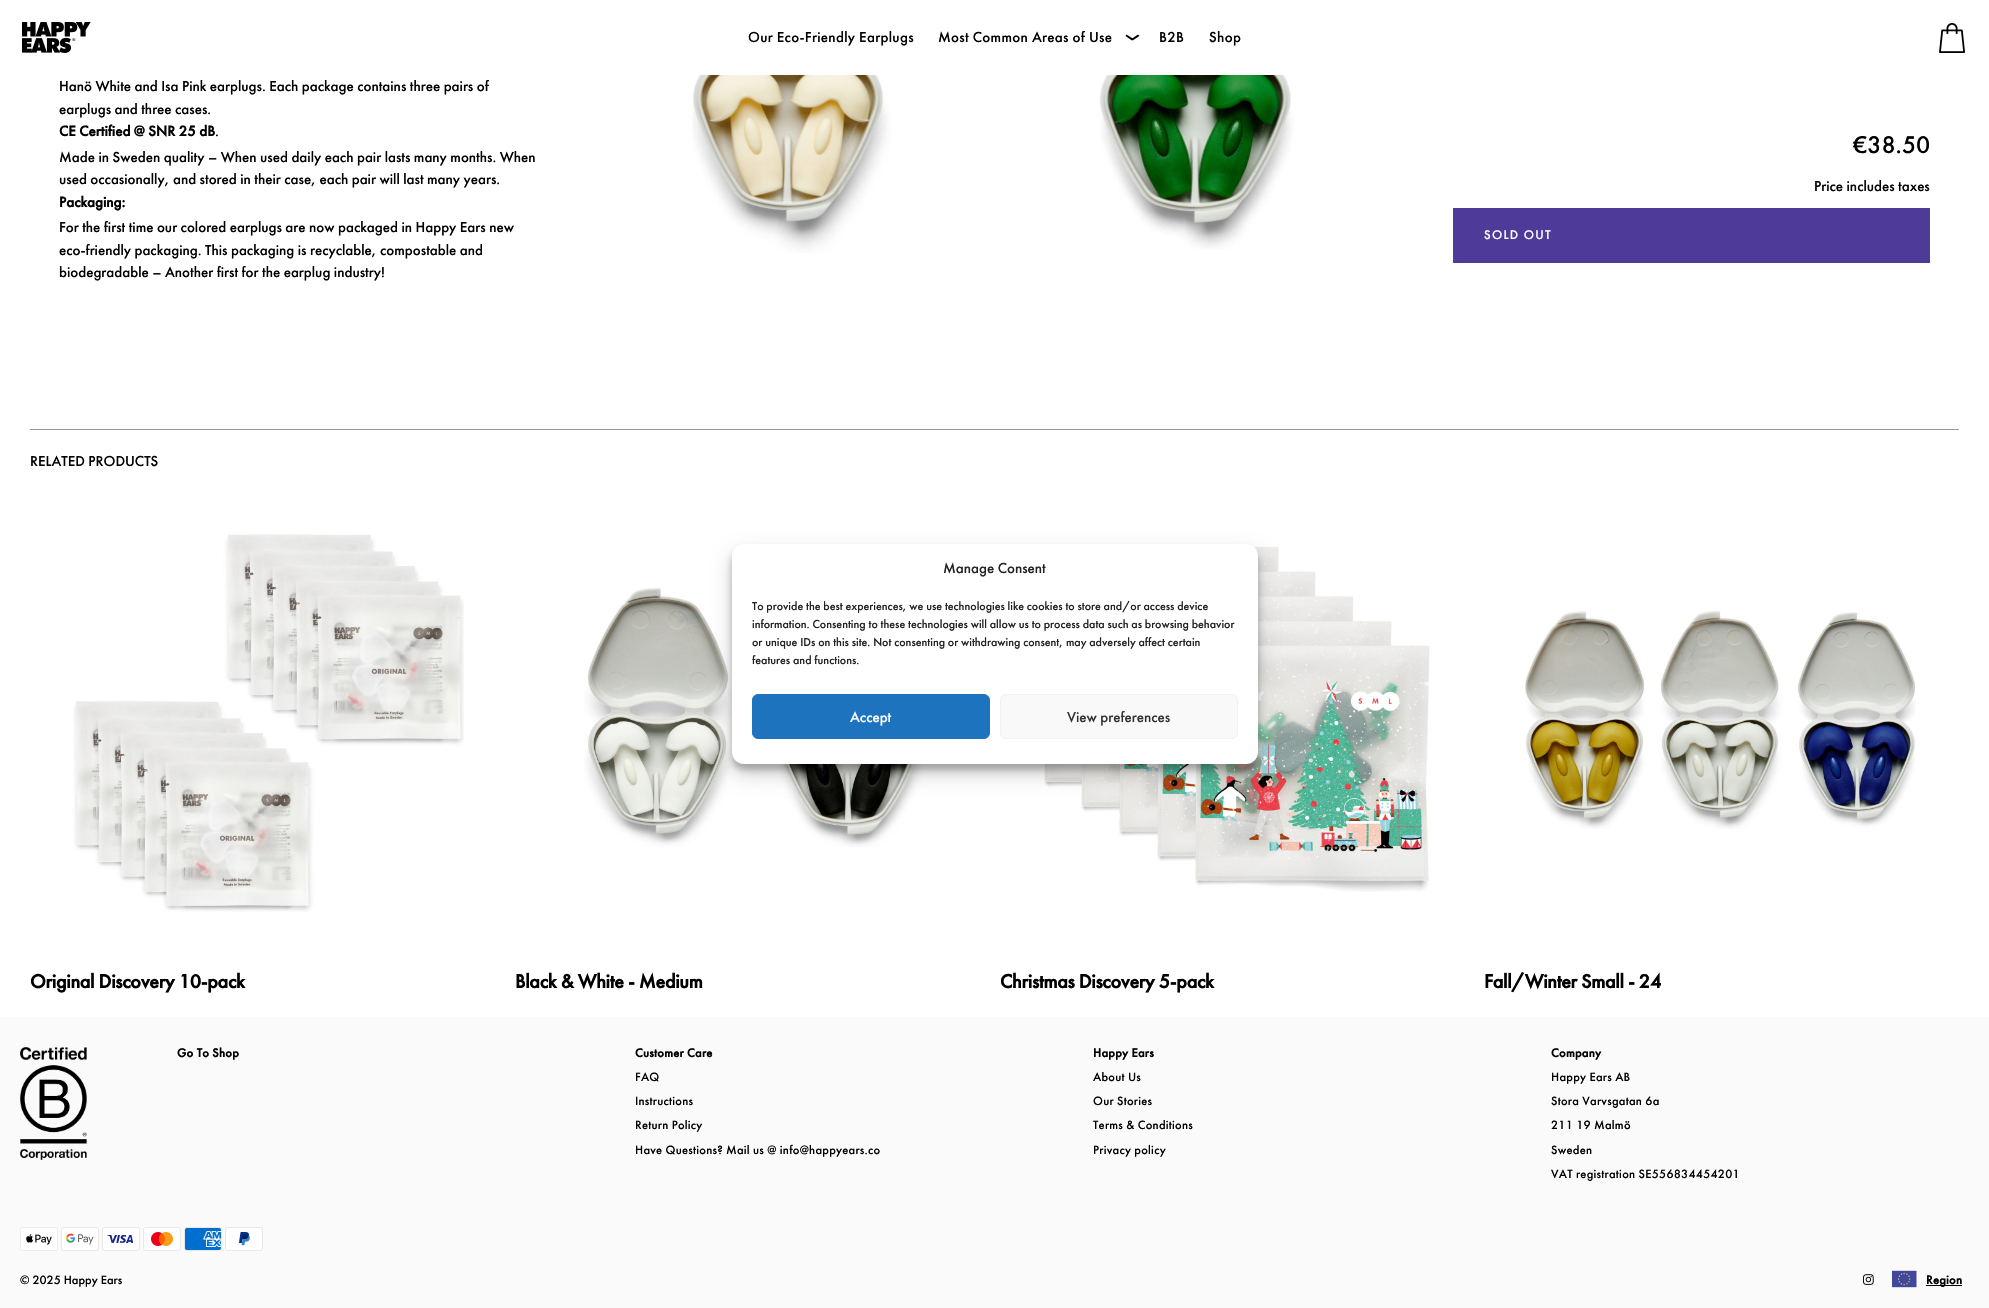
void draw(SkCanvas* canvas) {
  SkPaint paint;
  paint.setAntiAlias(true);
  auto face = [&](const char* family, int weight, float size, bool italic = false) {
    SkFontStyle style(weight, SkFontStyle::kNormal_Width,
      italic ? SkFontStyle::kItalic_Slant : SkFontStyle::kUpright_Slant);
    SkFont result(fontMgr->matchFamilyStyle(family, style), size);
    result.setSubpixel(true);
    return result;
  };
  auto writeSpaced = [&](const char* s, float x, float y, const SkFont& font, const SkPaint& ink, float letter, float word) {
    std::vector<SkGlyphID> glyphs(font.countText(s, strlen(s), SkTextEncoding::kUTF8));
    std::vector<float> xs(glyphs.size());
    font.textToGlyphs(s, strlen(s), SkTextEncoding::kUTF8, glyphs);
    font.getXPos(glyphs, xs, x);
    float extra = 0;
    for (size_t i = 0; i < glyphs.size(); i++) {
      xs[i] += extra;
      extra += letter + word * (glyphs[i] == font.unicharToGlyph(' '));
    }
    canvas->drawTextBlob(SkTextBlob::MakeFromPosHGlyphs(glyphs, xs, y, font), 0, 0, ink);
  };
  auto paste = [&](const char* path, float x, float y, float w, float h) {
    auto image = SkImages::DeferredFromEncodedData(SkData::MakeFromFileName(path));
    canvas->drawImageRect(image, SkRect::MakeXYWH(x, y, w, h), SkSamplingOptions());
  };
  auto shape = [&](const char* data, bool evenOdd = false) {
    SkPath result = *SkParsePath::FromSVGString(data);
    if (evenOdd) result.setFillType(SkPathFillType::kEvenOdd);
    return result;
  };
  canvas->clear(0xffffffff);
  paste("img/1.png", 22, 22, 69, 31);
  paint.setColor(0xff000000);
  canvas->drawPath(shape("M1139.5 36L1132.5 40.5L1131.5 39L1138 34.5Z"), paint);
  canvas->drawPath(shape("M1132 40.5L1125.5 36L1126.5 34.5L1133.5 39Z"), paint);
  paste("img/2.png", 1939, 23, 26, 30);
  paste("img/3.png", 692, 75, 200, 178);
  paste("img/4.png", 1099, 75, 196, 175);
  paint.setColor(0xff4e3a98);
  canvas->drawRect(SkRect::MakeXYWH(1453, 208, 477, 55), paint);
  paint.setColor(0xff979797);
  canvas->drawRect(SkRect::MakeXYWH(30, 429, 1929, 1), paint);
  paste("img/5.png", 73, 534, 391, 378);
  paste("img/6.png", 584, 587, 340, 260);
  paste("img/7.png", 1044, 546, 386, 346);
  paste("img/8.png", 1525, 610, 391, 219);
  paint.setColor(0x3b000000);
  paint.setMaskFilter(SkMaskFilter::MakeBlur(kNormal_SkBlurStyle, 3));
  canvas->drawRoundRect(SkRect::MakeXYWH(732, 550, 526, 220), 12, 12, paint);
  paint.setMaskFilter(nullptr);
  paint.setColor(0x30000000);
  paint.setMaskFilter(SkMaskFilter::MakeBlur(kNormal_SkBlurStyle, 10));
  canvas->drawRoundRect(SkRect::MakeXYWH(732, 554, 526, 220), 12, 12, paint);
  paint.setMaskFilter(nullptr);
  paint.setColor(0xffffffff);
  canvas->drawRoundRect(SkRect::MakeXYWH(732, 544, 526, 220), 12, 12, paint);
  paint.setColor(0xff1e73be);
  canvas->drawRoundRect(SkRect::MakeXYWH(752.5f, 694.5f, 237, 44), 5.5f, 5.5f, paint);
  paint.setStroke(true);
  paint.setStrokeWidth(1);
  canvas->drawRoundRect(SkRect::MakeXYWH(752.5f, 694.5f, 237, 44), 5.5f, 5.5f, paint);
  paint.setStroke(false);
  paint.setColor(0xfff9f9f9);
  canvas->drawRoundRect(SkRect::MakeXYWH(1000.5f, 694.5f, 237, 44), 5.5f, 5.5f, paint);
  paint.setStroke(true);
  paint.setColor(0xfff2f2f2);
  canvas->drawRoundRect(SkRect::MakeXYWH(1000.5f, 694.5f, 237, 44), 5.5f, 5.5f, paint);
  paint.setStroke(false);
  paint.setColor(0xfffafafa);
  canvas->drawRect(SkRect::MakeXYWH(0, 1017, 1989, 291), paint);
  paste("img/9.png", 20, 1047, 67, 113);
  paint.setColor(0xffffffff);
  canvas->drawRoundRect(SkRect::MakeXYWH(20.5f, 1227.5f, 37, 23), 1.5f, 1.5f, paint);
  paint.setStroke(true);
  paint.setColor(0xffeeeeee);
  canvas->drawRoundRect(SkRect::MakeXYWH(20.5f, 1227.5f, 37, 23), 1.5f, 1.5f, paint);
  paste("img/10.png", 26, 1234, 26, 11);
  paste("img/11.png", 61, 1227, 38, 24);
  paste("img/12.png", 102, 1227, 38, 24);
  paste("img/13.png", 143, 1227, 38, 24);
  paste("img/14.png", 184, 1227, 38, 24);
  paste("img/15.png", 225, 1227, 38, 24);
  paste("img/16.png", 1863, 1274, 11, 11);
  paste("img/17.png", 1892, 1270, 25, 18);
  paint.setStroke(false);
  paint.setColor(0xff000000);
  canvas->drawRect(SkRect::MakeXYWH(1926, 1285, 36, 1), paint);
  auto f0 = face("Futura PT", 500, 15);
  {
    const struct { const char* s; float x, y; } items[] = {
      {"Our Eco-Friendly Earplugs", 748, 42},
      {"Most Common Areas of Use", 938, 42},
      {"B2B", 1159, 42},
      {"Shop", 1209, 42},
    };
    for (auto [s, x, y] : items) {
      writeSpaced(s, x, y, f0, paint, 0.3f, 0);
    }
  }
  canvas->drawString("Hanö White and Isa Pink earplugs. Each package contains three pairs of", 59, 91, f0, paint);
  canvas->drawString("earplugs and three cases.", 59, 114, f0, paint);
  auto f1 = face("Futura PT", 700, 15);
  canvas->drawString("CE Certified @ SNR 25 dB", 59, 136, f1, paint);
  {
    const struct { const char* s; float x, y; } items[] = {
      {".", 215, 136},
      {"Made in Sweden quality – When used daily each pair lasts many months. When", 59, 162},
      {"used occasionally, and stored in their case, each pair will last many years.", 59, 184},
    };
    for (auto [s, x, y] : items) {
      canvas->drawString(s, x, y, f0, paint);
    }
  }
  canvas->drawString("Packaging:", 59, 207, f1, paint);
  {
    const struct { const char* s; float x, y; } items[] = {
      {"For the first time our colored earplugs are now packaged in Happy Ears new", 59, 232},
      {"eco-friendly packaging. This packaging is recyclable, compostable and", 59, 255},
      {"biodegradable – Another first for the earplug industry!", 59, 277},
    };
    for (auto [s, x, y] : items) {
      canvas->drawString(s, x, y, f0, paint);
    }
  }
  auto f2 = face("Futura PT", 500, 25);
  canvas->drawString("€38.50", 1853, 153, f2, paint);
  canvas->drawString("Price includes taxes", 1814, 191, f0, paint);
  auto f3 = face("Futura PT", 500, 13);
  paint.setColor(0xffffffff);
  writeSpaced("SOLD OUT", 1484, 239, f3, paint, 1.25f, 0);
  paint.setColor(0xff000000);
  canvas->drawString("RELATED PRODUCTS", 30, 466, f0, paint);
  auto f4 = face("Futura PT", 700, 20);
  {
    const struct { const char* s; float x, y; } items[] = {
      {"Original Discovery 10-pack", 30, 988},
      {"Black & White - Medium", 515, 988},
      {"Christmas Discovery 5-pack", 1000, 988},
      {"Fall/Winter Small - 24", 1484, 988},
    };
    for (auto [s, x, y] : items) {
      writeSpaced(s, x, y, f4, paint, -0.3f, 0);
    }
  }
  paint.setColor(0xff222222);
  canvas->drawString("Manage Consent", 943, 573, f0, paint);
  auto f5 = face("Futura PT", 500, 12);
  {
    const struct { const char* s; float x, y; } items[] = {
      {"To provide the best experiences, we use technologies like cookies to store and/or access device", 752, 610},
      {"information. Consenting to these technologies will allow us to process data such as browsing behavior", 752, 628},
      {"or unique IDs on this site. Not consenting or withdrawing consent, may adversely affect certain", 752, 646},
      {"features and functions.", 752, 664},
    };
    for (auto [s, x, y] : items) {
      canvas->drawString(s, x, y, f5, paint);
    }
  }
  paint.setColor(0xffffffff);
  canvas->drawString("Accept", 850, 722, f0, paint);
  paint.setColor(0xff333333);
  canvas->drawString("View preferences", 1067, 722, f0, paint);
  auto f6 = face("Futura PT", 700, 12.5f);
  paint.setColor(0xff000000);
  writeSpaced("Go To Shop", 177, 1057, f6, paint, 0.25f, 0);
  writeSpaced("Customer Care", 635, 1057, f6, paint, 0.25f, 0);
  auto f7 = face("Futura PT", 500, 12.5f);
  {
    const struct { const char* s; float x, y; } items[] = {
      {"FAQ", 635, 1081},
      {"Instructions", 635, 1105},
      {"Return Policy", 635, 1129},
      {"Have Questions? Mail us @ info@happyears.co", 635, 1154},
    };
    for (auto [s, x, y] : items) {
      writeSpaced(s, x, y, f7, paint, 0.25f, 0);
    }
  }
  writeSpaced("Happy Ears", 1093, 1057, f6, paint, 0.25f, 0);
  {
    const struct { const char* s; float x, y; } items[] = {
      {"About Us", 1093, 1081},
      {"Our Stories", 1093, 1105},
      {"Terms & Conditions", 1093, 1129},
      {"Privacy policy", 1093, 1154},
    };
    for (auto [s, x, y] : items) {
      writeSpaced(s, x, y, f7, paint, 0.25f, 0);
    }
  }
  writeSpaced("Company", 1551, 1057, f6, paint, 0.25f, 0);
  {
    const struct { const char* s; float x, y; } items[] = {
      {"Happy Ears AB", 1551, 1081},
      {"Stora Varvsgatan 6a", 1551, 1105},
      {"211 19 Malmö", 1551, 1129},
      {"Sweden", 1551, 1154},
      {"VAT registration SE556834454201", 1551, 1178},
    };
    for (auto [s, x, y] : items) {
      writeSpaced(s, x, y, f7, paint, 0.25f, 0);
    }
  }
  canvas->drawString("© 2025 Happy Ears", 20, 1284, f7, paint);
  writeSpaced("Region", 1926, 1284, f6, paint, 0.25f, 0);
}
